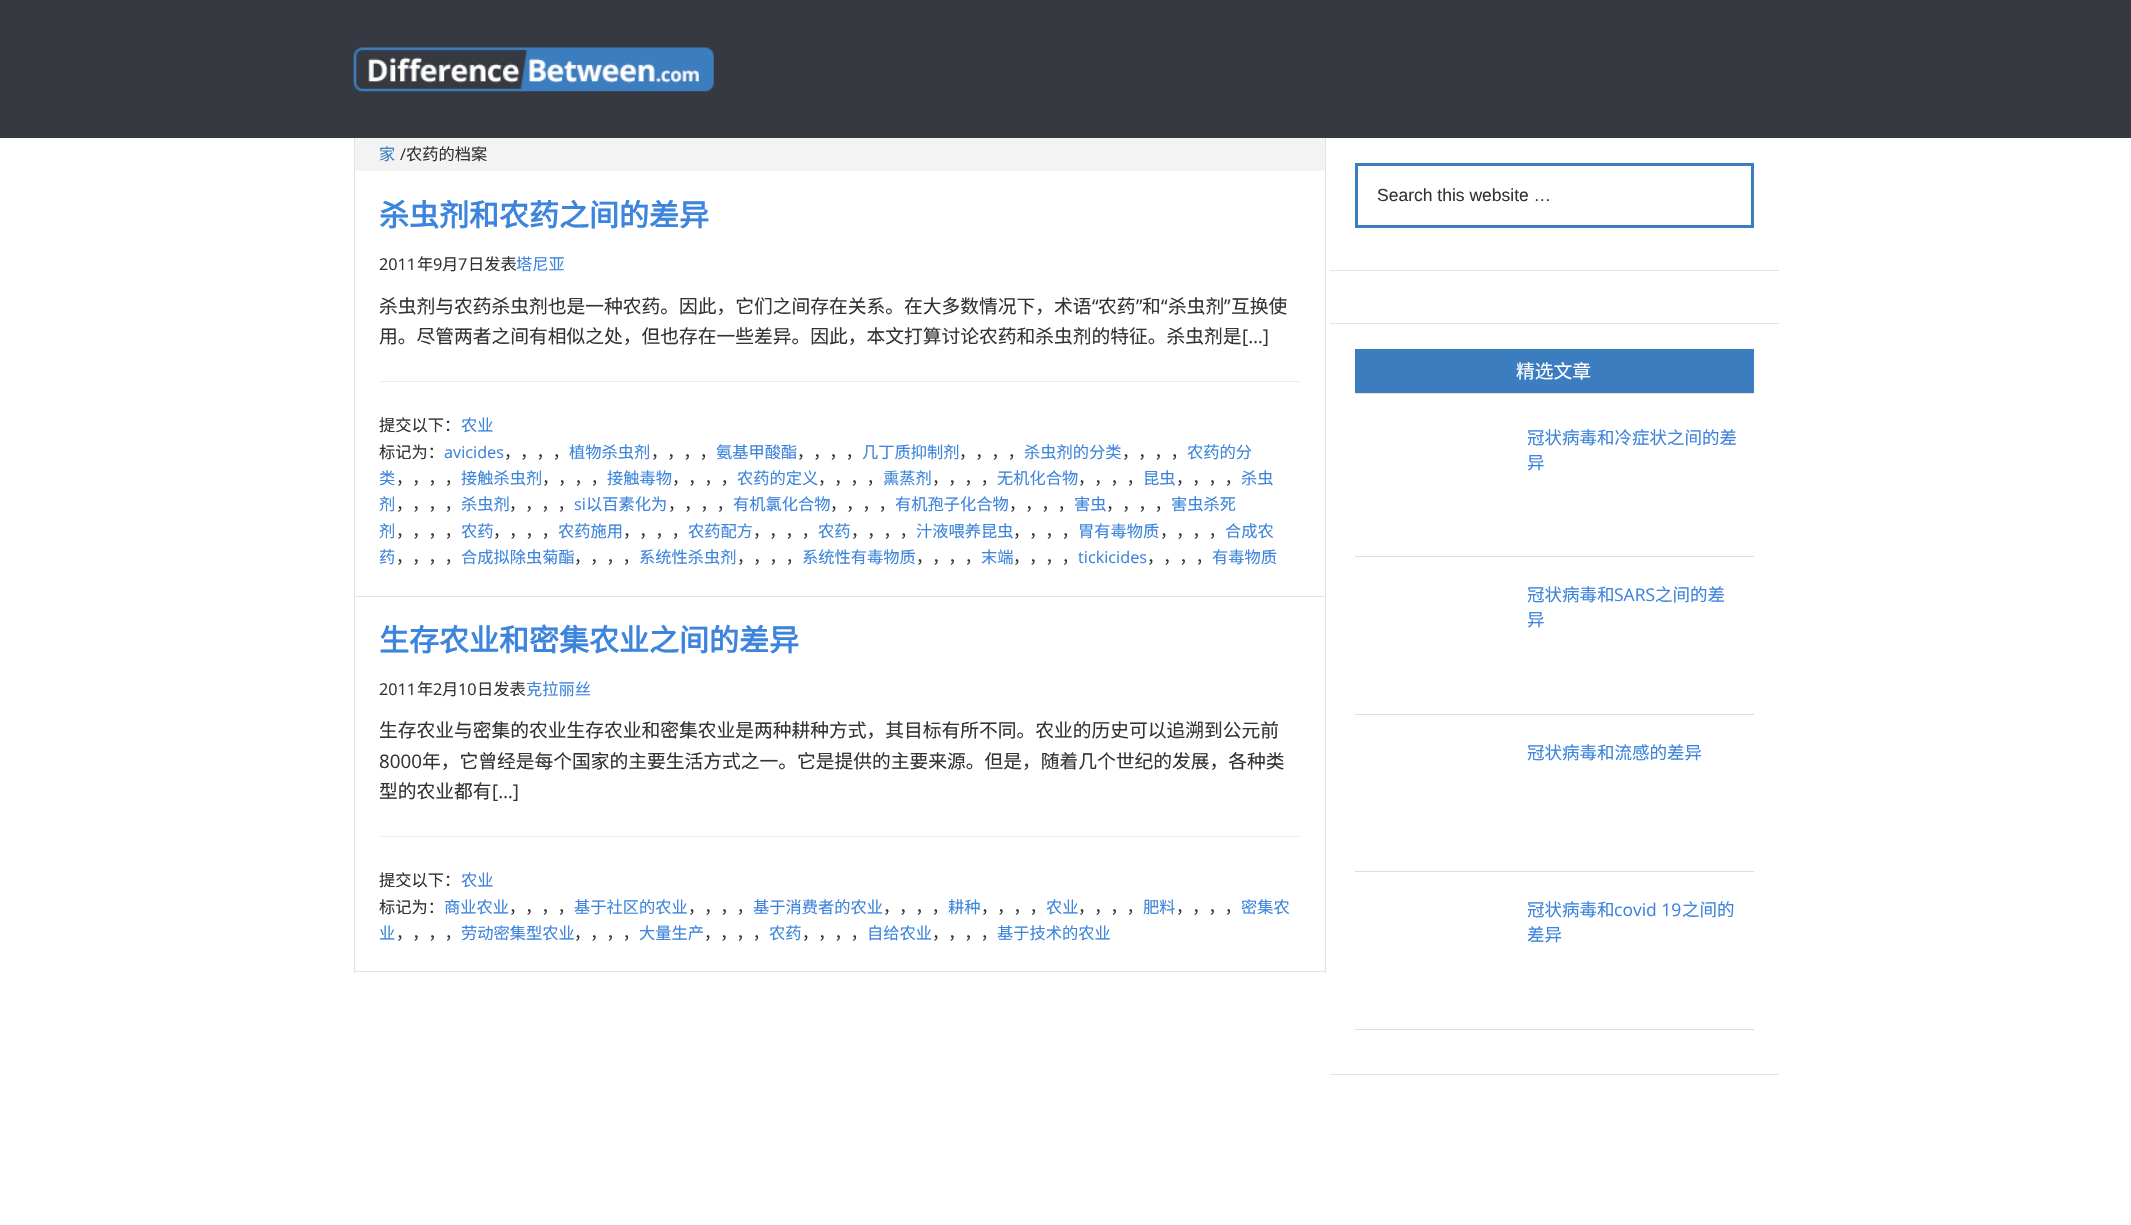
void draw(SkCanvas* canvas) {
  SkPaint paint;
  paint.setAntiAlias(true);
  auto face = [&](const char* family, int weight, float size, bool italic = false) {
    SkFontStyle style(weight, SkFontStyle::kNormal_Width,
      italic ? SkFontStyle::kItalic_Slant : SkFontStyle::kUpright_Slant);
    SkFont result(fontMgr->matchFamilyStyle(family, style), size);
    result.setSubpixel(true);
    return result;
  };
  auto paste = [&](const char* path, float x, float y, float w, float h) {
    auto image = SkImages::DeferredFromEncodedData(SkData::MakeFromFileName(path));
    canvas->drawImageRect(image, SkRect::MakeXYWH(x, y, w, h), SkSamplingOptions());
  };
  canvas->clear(0xffffffff);
  paint.setColor(0xff373941);
  canvas->drawRect(SkRect::MakeXYWH(0, 0, 2131, 138), paint);
  paste("img/1.png", 353, 47, 361, 45);
  {
    const struct { float x, y, w, h; SkColor color; } items[] = {
      {1325, 138, 1, 835, 0xffe3e3e3},
      {354, 138, 1, 835, 0xffe3e3e3},
      {355, 138, 970, 33, 0xfff3f3f3},
      {355, 596, 970, 1, 0xffe3e3e3},
      {380, 381, 920, 1, 0xffeeeeee},
      {355, 971, 970, 1, 0xffe3e3e3},
      {380, 836, 920, 1, 0xffeeeeee},
      {1330, 270, 449, 1, 0xffe3e3e3},
    };
    for (auto [x, y, w, h, color] : items) {
      paint.setColor(color);
      canvas->drawRect(SkRect::MakeXYWH(x, y, w, h), paint);
    }
  }
  paint.setStroke(true);
  paint.setStrokeWidth(3);
  paint.setColor(0xff3b7dbf);
  canvas->drawRect(SkRect::MakeXYWH(1356.5f, 164.5f, 396, 62), paint);
  paint.setStroke(false);
  {
    const struct { float x, y, w, h; SkColor color; } items[] = {
      {1330, 323, 449, 1, 0xffe3e3e3},
      {1330, 1074, 449, 1, 0xffe3e3e3},
      {1355, 349, 399, 44, 0xff3b7dbf},
      {1355, 393, 399, 1, 0xffe3e3e3},
      {1355, 556, 399, 1, 0xffdddddd},
      {1355, 714, 399, 1, 0xffdddddd},
      {1355, 871, 399, 1, 0xffdddddd},
      {1355, 1029, 399, 1, 0xffdddddd},
    };
    for (auto [x, y, w, h, color] : items) {
      paint.setColor(color);
      canvas->drawRect(SkRect::MakeXYWH(x, y, w, h), paint);
    }
  }
  auto f0 = face("Noto Sans CJK SC", 400, 16.25f);
  paint.setColor(0xff3b7dbf);
  canvas->drawString("家", 379, 160, f0, paint);
  auto f1 = face("Open Sans", 400, 16.25f);
  paint.setColor(0xff333333);
  canvas->drawString("/", 400, 160, f1, paint);
  canvas->drawString("农药的档案", 406, 160, f0, paint);
  auto f2 = face("Noto Sans CJK SC", 700, 30);
  paint.setColor(0xff3d84dc);
  canvas->drawString("杀虫剂和农药之间的差异", 379, 226, f2, paint);
  paint.setColor(0xff333333);
  canvas->drawString("2011", 379, 270, f1, paint);
  canvas->drawString("年", 417, 270, f0, paint);
  canvas->drawString("9", 433, 270, f1, paint);
  canvas->drawString("月", 442, 270, f0, paint);
  canvas->drawString("7", 458, 270, f1, paint);
  canvas->drawString("日发表", 468, 270, f0, paint);
  paint.setColor(0xff3d84dc);
  canvas->drawString("塔尼亚", 516, 270, f0, paint);
  auto f3 = face("Noto Sans CJK SC", 400, 18.75f);
  paint.setColor(0xff333333);
  canvas->drawString("杀虫剂与农药杀虫剂也是一种农药。因此，它们之间存在关系。在大多数情况下，术语", 379, 313, f3, paint);
  auto f4 = face("Open Sans", 400, 18.75f);
  canvas->drawString("“", 1092, 313, f4, paint);
  canvas->drawString("农药", 1098, 313, f3, paint);
  canvas->drawString("”", 1136, 313, f4, paint);
  canvas->drawString("和", 1142, 313, f3, paint);
  canvas->drawString("“", 1161, 313, f4, paint);
  canvas->drawString("杀虫剂", 1168, 313, f3, paint);
  canvas->drawString("”", 1224, 313, f4, paint);
  canvas->drawString("互换使", 1231, 313, f3, paint);
  canvas->drawString("用。尽管两者之间有相似之处，但也存在一些差异。因此，本文打算讨论农药和杀虫剂的特征。杀虫剂是", 379, 343, f3, paint);
  canvas->drawString("[…]", 1242, 343, f4, paint);
  canvas->drawString("提交以下：", 379, 431, f0, paint);
  paint.setColor(0xff3d84dc);
  canvas->drawString("农业", 461, 431, f0, paint);
  paint.setColor(0xff333333);
  canvas->drawString("标记为：", 379, 458, f0, paint);
  paint.setColor(0xff3d84dc);
  canvas->drawString("avicides", 444, 458, f1, paint);
  paint.setColor(0xff333333);
  canvas->drawString("，，，，", 504, 458, f0, paint);
  paint.setColor(0xff3d84dc);
  canvas->drawString("植物杀虫剂", 569, 458, f0, paint);
  paint.setColor(0xff333333);
  canvas->drawString("，，，，", 651, 458, f0, paint);
  paint.setColor(0xff3d84dc);
  canvas->drawString("氨基甲酸酯", 716, 458, f0, paint);
  paint.setColor(0xff333333);
  canvas->drawString("，，，，", 797, 458, f0, paint);
  paint.setColor(0xff3d84dc);
  canvas->drawString("几丁质抑制剂", 862, 458, f0, paint);
  paint.setColor(0xff333333);
  canvas->drawString("，，，，", 959, 458, f0, paint);
  paint.setColor(0xff3d84dc);
  canvas->drawString("杀虫剂的分类", 1024, 458, f0, paint);
  paint.setColor(0xff333333);
  canvas->drawString("，，，，", 1122, 458, f0, paint);
  paint.setColor(0xff3d84dc);
  canvas->drawString("农药的分", 1187, 458, f0, paint);
  canvas->drawString("类", 379, 484, f0, paint);
  paint.setColor(0xff333333);
  canvas->drawString("，，，，", 396, 484, f0, paint);
  paint.setColor(0xff3d84dc);
  canvas->drawString("接触杀虫剂", 461, 484, f0, paint);
  paint.setColor(0xff333333);
  canvas->drawString("，，，，", 542, 484, f0, paint);
  paint.setColor(0xff3d84dc);
  canvas->drawString("接触毒物", 607, 484, f0, paint);
  paint.setColor(0xff333333);
  canvas->drawString("，，，，", 672, 484, f0, paint);
  paint.setColor(0xff3d84dc);
  canvas->drawString("农药的定义", 737, 484, f0, paint);
  paint.setColor(0xff333333);
  canvas->drawString("，，，，", 818, 484, f0, paint);
  paint.setColor(0xff3d84dc);
  canvas->drawString("熏蒸剂", 883, 484, f0, paint);
  paint.setColor(0xff333333);
  canvas->drawString("，，，，", 932, 484, f0, paint);
  paint.setColor(0xff3d84dc);
  canvas->drawString("无机化合物", 997, 484, f0, paint);
  paint.setColor(0xff333333);
  canvas->drawString("，，，，", 1078, 484, f0, paint);
  paint.setColor(0xff3d84dc);
  canvas->drawString("昆虫", 1143, 484, f0, paint);
  paint.setColor(0xff333333);
  canvas->drawString("，，，，", 1176, 484, f0, paint);
  paint.setColor(0xff3d84dc);
  canvas->drawString("杀虫", 1241, 484, f0, paint);
  canvas->drawString("剂", 379, 510, f0, paint);
  paint.setColor(0xff333333);
  canvas->drawString("，，，，", 396, 510, f0, paint);
  paint.setColor(0xff3d84dc);
  canvas->drawString("杀虫剂", 461, 510, f0, paint);
  paint.setColor(0xff333333);
  canvas->drawString("，，，，", 509, 510, f0, paint);
  paint.setColor(0xff3d84dc);
  canvas->drawString("si", 574, 510, f1, paint);
  canvas->drawString("以百素化为", 586, 510, f0, paint);
  paint.setColor(0xff333333);
  canvas->drawString("，，，，", 668, 510, f0, paint);
  paint.setColor(0xff3d84dc);
  canvas->drawString("有机氯化合物", 733, 510, f0, paint);
  paint.setColor(0xff333333);
  canvas->drawString("，，，，", 830, 510, f0, paint);
  paint.setColor(0xff3d84dc);
  canvas->drawString("有机孢子化合物", 895, 510, f0, paint);
  paint.setColor(0xff333333);
  canvas->drawString("，，，，", 1009, 510, f0, paint);
  paint.setColor(0xff3d84dc);
  canvas->drawString("害虫", 1074, 510, f0, paint);
  paint.setColor(0xff333333);
  canvas->drawString("，，，，", 1106, 510, f0, paint);
  paint.setColor(0xff3d84dc);
  canvas->drawString("害虫杀死", 1171, 510, f0, paint);
  canvas->drawString("剂", 379, 537, f0, paint);
  paint.setColor(0xff333333);
  canvas->drawString("，，，，", 396, 537, f0, paint);
  paint.setColor(0xff3d84dc);
  canvas->drawString("农药", 461, 537, f0, paint);
  paint.setColor(0xff333333);
  canvas->drawString("，，，，", 493, 537, f0, paint);
  paint.setColor(0xff3d84dc);
  canvas->drawString("农药施用", 558, 537, f0, paint);
  paint.setColor(0xff333333);
  canvas->drawString("，，，，", 623, 537, f0, paint);
  paint.setColor(0xff3d84dc);
  canvas->drawString("农药配方", 688, 537, f0, paint);
  paint.setColor(0xff333333);
  canvas->drawString("，，，，", 753, 537, f0, paint);
  paint.setColor(0xff3d84dc);
  canvas->drawString("农药", 818, 537, f0, paint);
  paint.setColor(0xff333333);
  canvas->drawString("，，，，", 851, 537, f0, paint);
  paint.setColor(0xff3d84dc);
  canvas->drawString("汁液喂养昆虫", 916, 537, f0, paint);
  paint.setColor(0xff333333);
  canvas->drawString("，，，，", 1013, 537, f0, paint);
  paint.setColor(0xff3d84dc);
  canvas->drawString("胃有毒物质", 1078, 537, f0, paint);
  paint.setColor(0xff333333);
  canvas->drawString("，，，，", 1160, 537, f0, paint);
  paint.setColor(0xff3d84dc);
  canvas->drawString("合成农", 1225, 537, f0, paint);
  canvas->drawString("药", 379, 563, f0, paint);
  paint.setColor(0xff333333);
  canvas->drawString("，，，，", 396, 563, f0, paint);
  paint.setColor(0xff3d84dc);
  canvas->drawString("合成拟除虫菊酯", 461, 563, f0, paint);
  paint.setColor(0xff333333);
  canvas->drawString("，，，，", 574, 563, f0, paint);
  paint.setColor(0xff3d84dc);
  canvas->drawString("系统性杀虫剂", 639, 563, f0, paint);
  paint.setColor(0xff333333);
  canvas->drawString("，，，，", 737, 563, f0, paint);
  paint.setColor(0xff3d84dc);
  canvas->drawString("系统性有毒物质", 802, 563, f0, paint);
  paint.setColor(0xff333333);
  canvas->drawString("，，，，", 916, 563, f0, paint);
  paint.setColor(0xff3d84dc);
  canvas->drawString("末端", 981, 563, f0, paint);
  paint.setColor(0xff333333);
  canvas->drawString("，，，，", 1013, 563, f0, paint);
  paint.setColor(0xff3d84dc);
  canvas->drawString("tickicides", 1078, 563, f1, paint);
  paint.setColor(0xff333333);
  canvas->drawString("，，，，", 1147, 563, f0, paint);
  paint.setColor(0xff3d84dc);
  canvas->drawString("有毒物质", 1212, 563, f0, paint);
  canvas->drawString("生存农业和密集农业之间的差异", 379, 651, f2, paint);
  paint.setColor(0xff333333);
  canvas->drawString("2011", 379, 695, f1, paint);
  canvas->drawString("年", 417, 695, f0, paint);
  canvas->drawString("2", 433, 695, f1, paint);
  canvas->drawString("月", 442, 695, f0, paint);
  canvas->drawString("10", 458, 695, f1, paint);
  canvas->drawString("日发表", 477, 695, f0, paint);
  paint.setColor(0xff3d84dc);
  canvas->drawString("克拉丽丝", 526, 695, f0, paint);
  paint.setColor(0xff333333);
  canvas->drawString("生存农业与密集的农业生存农业和密集农业是两种耕种方式，其目标有所不同。农业的历史可以追溯到公元前", 379, 737, f3, paint);
  canvas->drawString("8000", 379, 768, f4, paint);
  canvas->drawString("年，它曾经是每个国家的主要生活方式之一。它是提供的主要来源。但是，随着几个世纪的发展，各种类", 422, 768, f3, paint);
  canvas->drawString("型的农业都有", 379, 798, f3, paint);
  canvas->drawString("[…]", 492, 798, f4, paint);
  canvas->drawString("提交以下：", 379, 886, f0, paint);
  paint.setColor(0xff3d84dc);
  canvas->drawString("农业", 461, 886, f0, paint);
  paint.setColor(0xff333333);
  canvas->drawString("标记为：", 379, 913, f0, paint);
  paint.setColor(0xff3d84dc);
  canvas->drawString("商业农业", 444, 913, f0, paint);
  paint.setColor(0xff333333);
  canvas->drawString("，，，，", 509, 913, f0, paint);
  paint.setColor(0xff3d84dc);
  canvas->drawString("基于社区的农业", 574, 913, f0, paint);
  paint.setColor(0xff333333);
  canvas->drawString("，，，，", 688, 913, f0, paint);
  paint.setColor(0xff3d84dc);
  canvas->drawString("基于消费者的农业", 753, 913, f0, paint);
  paint.setColor(0xff333333);
  canvas->drawString("，，，，", 883, 913, f0, paint);
  paint.setColor(0xff3d84dc);
  canvas->drawString("耕种", 948, 913, f0, paint);
  paint.setColor(0xff333333);
  canvas->drawString("，，，，", 981, 913, f0, paint);
  paint.setColor(0xff3d84dc);
  canvas->drawString("农业", 1046, 913, f0, paint);
  paint.setColor(0xff333333);
  canvas->drawString("，，，，", 1078, 913, f0, paint);
  paint.setColor(0xff3d84dc);
  canvas->drawString("肥料", 1143, 913, f0, paint);
  paint.setColor(0xff333333);
  canvas->drawString("，，，，", 1176, 913, f0, paint);
  paint.setColor(0xff3d84dc);
  canvas->drawString("密集农", 1241, 913, f0, paint);
  canvas->drawString("业", 379, 939, f0, paint);
  paint.setColor(0xff333333);
  canvas->drawString("，，，，", 396, 939, f0, paint);
  paint.setColor(0xff3d84dc);
  canvas->drawString("劳动密集型农业", 461, 939, f0, paint);
  paint.setColor(0xff333333);
  canvas->drawString("，，，，", 574, 939, f0, paint);
  paint.setColor(0xff3d84dc);
  canvas->drawString("大量生产", 639, 939, f0, paint);
  paint.setColor(0xff333333);
  canvas->drawString("，，，，", 704, 939, f0, paint);
  paint.setColor(0xff3d84dc);
  canvas->drawString("农药", 769, 939, f0, paint);
  paint.setColor(0xff333333);
  canvas->drawString("，，，，", 802, 939, f0, paint);
  paint.setColor(0xff3d84dc);
  canvas->drawString("自给农业", 867, 939, f0, paint);
  paint.setColor(0xff333333);
  canvas->drawString("，，，，", 932, 939, f0, paint);
  paint.setColor(0xff3d84dc);
  canvas->drawString("基于技术的农业", 997, 939, f0, paint);
  auto f5 = face("Liberation Sans", 400, 17.5f);
  paint.setColor(0xff333333);
  canvas->drawString("Search this website …", 1377, 201, f5, paint);
  paint.setColor(0xffffffff);
  canvas->drawString("精选文章", 1516, 378, f3, paint);
  auto f6 = face("Noto Sans CJK SC", 400, 17.5f);
  paint.setColor(0xff3d84dc);
  {
    const struct { const char* s; float x, y; } items[] = {
      {"冠状病毒和冷症状之间的差", 1527, 444},
      {"异", 1527, 469},
      {"冠状病毒和", 1527, 601},
    };
    for (auto [s, x, y] : items) {
      canvas->drawString(s, x, y, f6, paint);
    }
  }
  auto f7 = face("Open Sans", 400, 17.5f);
  canvas->drawString("SARS", 1614, 601, f7, paint);
  {
    const struct { const char* s; float x, y; } items[] = {
      {"之间的差", 1655, 601},
      {"异", 1527, 626},
      {"冠状病毒和流感的差异", 1527, 759},
      {"冠状病毒和", 1527, 916},
    };
    for (auto [s, x, y] : items) {
      canvas->drawString(s, x, y, f6, paint);
    }
  }
  canvas->drawString("covid 19", 1614, 916, f7, paint);
  canvas->drawString("之间的", 1682, 916, f6, paint);
  canvas->drawString("差异", 1527, 941, f6, paint);
}
